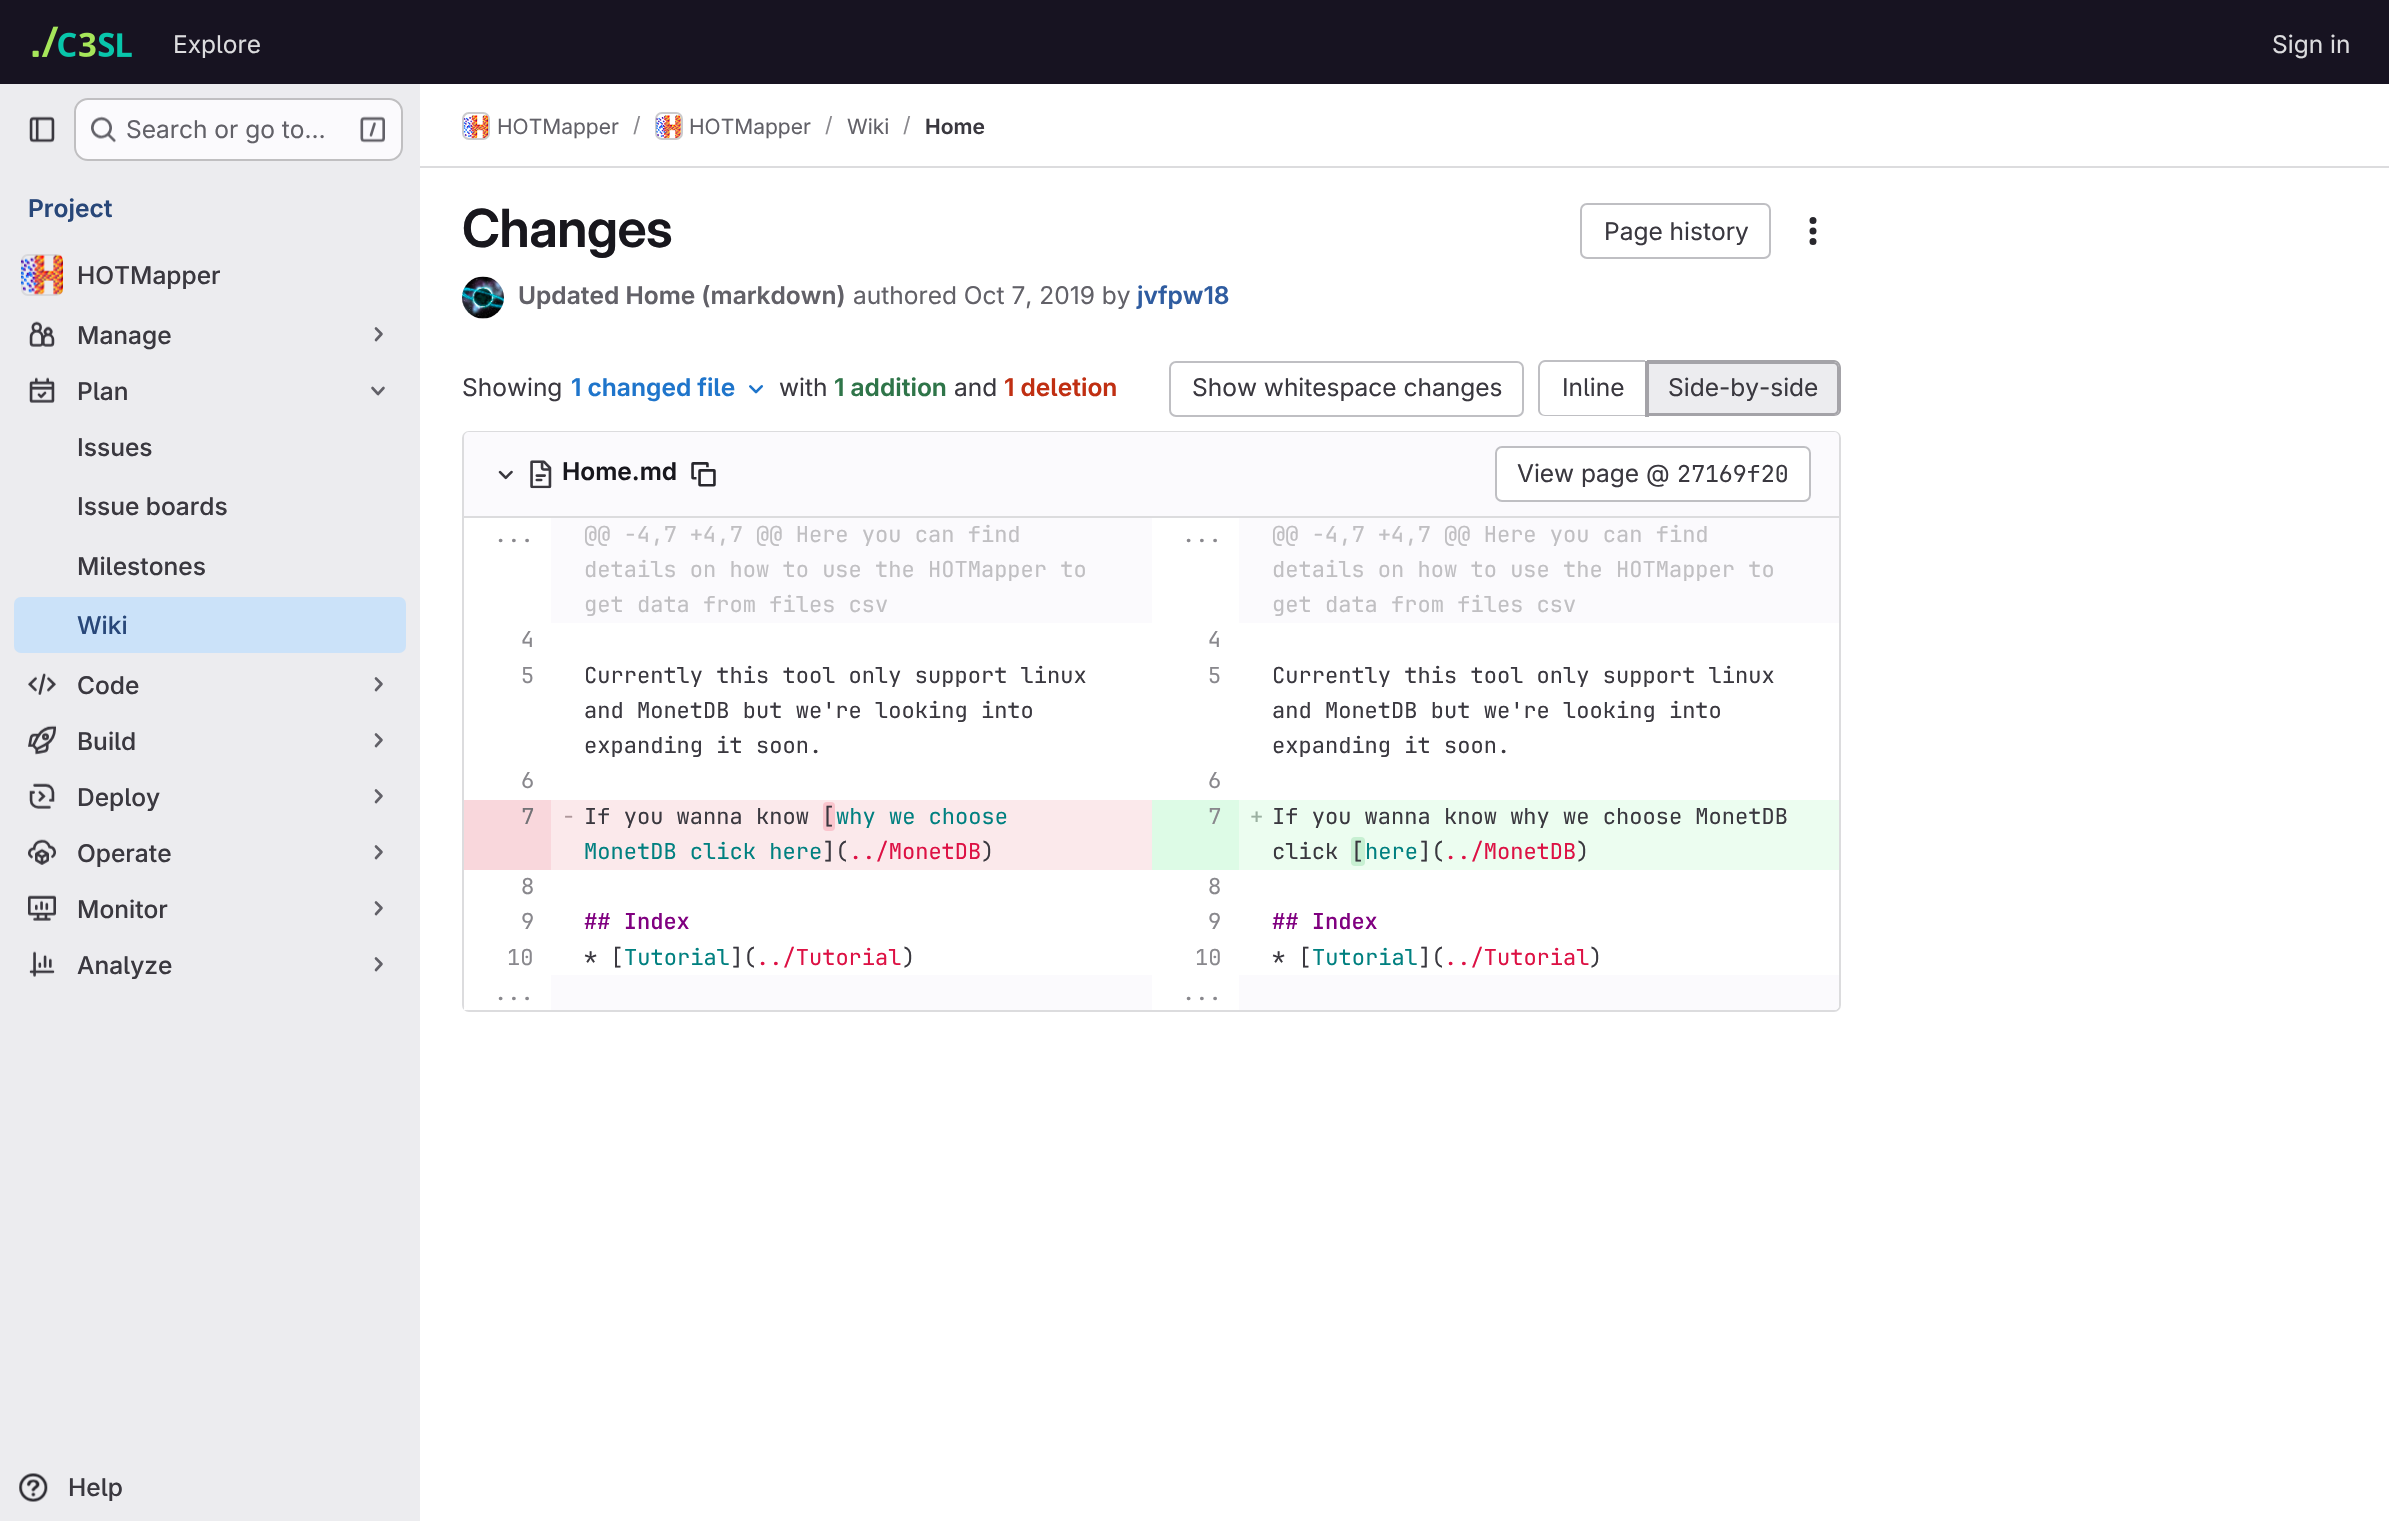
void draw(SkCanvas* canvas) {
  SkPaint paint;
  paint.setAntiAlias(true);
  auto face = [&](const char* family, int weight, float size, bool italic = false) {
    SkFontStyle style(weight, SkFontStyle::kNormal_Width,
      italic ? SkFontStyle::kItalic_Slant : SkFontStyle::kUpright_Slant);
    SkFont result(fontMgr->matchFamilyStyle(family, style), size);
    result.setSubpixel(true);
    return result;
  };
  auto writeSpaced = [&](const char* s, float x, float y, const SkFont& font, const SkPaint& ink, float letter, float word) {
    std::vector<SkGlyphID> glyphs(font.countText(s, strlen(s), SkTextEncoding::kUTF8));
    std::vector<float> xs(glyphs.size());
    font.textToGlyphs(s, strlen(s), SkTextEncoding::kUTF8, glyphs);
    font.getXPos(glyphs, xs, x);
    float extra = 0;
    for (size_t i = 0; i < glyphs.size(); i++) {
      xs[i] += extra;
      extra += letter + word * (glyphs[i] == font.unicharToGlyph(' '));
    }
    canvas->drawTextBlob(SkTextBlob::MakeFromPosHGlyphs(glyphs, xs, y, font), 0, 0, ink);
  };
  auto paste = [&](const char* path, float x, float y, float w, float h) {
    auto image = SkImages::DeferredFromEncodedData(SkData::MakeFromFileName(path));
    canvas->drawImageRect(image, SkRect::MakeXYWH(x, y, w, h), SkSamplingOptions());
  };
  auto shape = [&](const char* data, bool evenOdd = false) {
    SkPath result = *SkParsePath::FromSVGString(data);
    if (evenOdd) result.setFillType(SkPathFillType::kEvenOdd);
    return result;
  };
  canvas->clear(0xffffffff);
  paint.setColor(0xff171321);
  canvas->drawRect(SkRect::MakeXYWH(0, 0, 2389, 84), paint);
  paste("img/1.png", 32, 26, 100, 31);
  paint.setColor(0xffececef);
  canvas->drawRect(SkRect::MakeXYWH(0, 84, 420, 1437), paint);
  paste("img/2.png", 29, 116, 26, 27);
  paint.setColor(0xfffbfafd);
  canvas->drawRoundRect(SkRect::MakeXYWH(74, 98, 329, 63), 14, 14, paint);
  paint.setStroke(true);
  paint.setStrokeWidth(2);
  paint.setColor(0x3d050506);
  canvas->drawRoundRect(SkRect::MakeXYWH(75, 99, 327, 61), 13, 13, paint);
  paste("img/3.png", 91, 116, 25, 27);
  paste("img/4.png", 360, 116, 25, 27);
  paste("img/5.png", 21, 254, 42, 41);
  paint.setColor(0x14050506);
  canvas->drawRoundRect(SkRect::MakeXYWH(22, 255, 40, 40), 6, 6, paint);
  paste("img/6.png", 29, 321, 26, 26);
  paint.setStrokeWidth(2.6f);
  paint.setStrokeCap(SkPaint::kRound_Cap);
  paint.setStrokeJoin(SkPaint::kRound_Join);
  paint.setColor(0xff626168);
  canvas->drawPath(shape("M376 328.5L381.5 334L376 340"), paint);
  paste("img/7.png", 29, 377, 26, 26);
  canvas->drawPath(shape("M383.5 388L378 394L372.5 388"), paint);
  paint.setStroke(false);
  paint.setColor(0xffcbe2f9);
  canvas->drawRoundRect(SkRect::MakeXYWH(14, 597, 392, 56), 7, 7, paint);
  paste("img/8.png", 28, 673, 28, 22);
  paint.setStroke(true);
  paint.setColor(0xff626168);
  canvas->drawPath(shape("M376 678.5L381.5 684L376 690"), paint);
  paste("img/9.png", 28, 725, 28, 30);
  canvas->drawPath(shape("M376 734.5L381.5 740L376 746"), paint);
  paste("img/10.png", 29, 783, 26, 26);
  canvas->drawPath(shape("M376 790.5L381.5 796L376 802"), paint);
  paste("img/11.png", 28, 839, 28, 26);
  canvas->drawPath(shape("M376 846.5L381.5 852L376 858"), paint);
  paste("img/12.png", 28, 895, 28, 26);
  canvas->drawPath(shape("M376 902.5L381.5 908L376 914"), paint);
  paste("img/13.png", 29, 951, 26, 26);
  canvas->drawPath(shape("M376 958.5L381.5 964L376 970"), paint);
  paste("img/14.png", 19, 1473, 29, 29);
  paint.setStroke(false);
  paint.setColor(0xffdcdcde);
  canvas->drawRect(SkRect::MakeXYWH(420, 166, 1969, 2), paint);
  paint.setStroke(true);
  paint.setStrokeWidth(2);
  paint.setStrokeCap(SkPaint::kButt_Cap);
  paint.setStrokeJoin(SkPaint::kMiter_Join);
  canvas->drawRoundRect(SkRect::MakeXYWH(463, 113, 26, 26), 6, 6, paint);
  paste("img/15.png", 463, 115, 26, 24);
  paint.setColor(0x14050506);
  canvas->drawRoundRect(SkRect::MakeXYWH(463, 113, 26, 26), 6, 6, paint);
  paint.setColor(0xffdcdcde);
  canvas->drawRoundRect(SkRect::MakeXYWH(656, 113, 26, 26), 6, 6, paint);
  paste("img/16.png", 656, 115, 25, 24);
  paint.setColor(0x14050506);
  canvas->drawRoundRect(SkRect::MakeXYWH(656, 113, 26, 26), 6, 6, paint);
  paint.setColor(0xffbfbfc3);
  canvas->drawRoundRect(SkRect::MakeXYWH(1581, 204, 189, 54), 6, 6, paint);
  paste("img/17.png", 1809, 217, 8, 28);
  paint.setColor(0xffe8e7e9);
  canvas->drawCircle(483, 298, 20, paint);
  paste("img/18.png", 462, 276, 42, 43);
  paste("img/19.png", 749, 385, 15, 9);
  paint.setColor(0xffbfbfc3);
  canvas->drawRoundRect(SkRect::MakeXYWH(1170, 362, 353, 54), 6, 6, paint);
  paint.setStroke(false);
  canvas->drawPath(shape("M1545 360H1645V416H1545C1541 416 1538 413 1538 410V368C1538 364 1541 360 1545 360ZM1545 362H1645V415H1545C1542 415 1540 412 1540 410V368C1540 365 1542 362 1545 362Z", true), paint);
  paint.setColor(0xffececef);
  canvas->drawPath(shape("M1648 363H1834C1836 363 1838 365 1838 367V410C1838 412 1836 414 1834 414H1648Z"), paint);
  paint.setStroke(true);
  paint.setColor(0xffa4a3a8);
  canvas->drawPath(shape("M1648 363H1834C1836 363 1838 365 1838 367V410C1838 412 1836 414 1834 414H1648Z"), paint);
  paint.setStroke(false);
  canvas->drawPath(shape("M1647 360H1834C1838 360 1841 364 1841 368V410C1841 413 1838 416 1834 416H1647ZM1647 362H1834C1837 362 1839 365 1839 368V410C1839 412 1837 415 1834 415H1647Z", true), paint);
  canvas->drawRect(SkRect::MakeXYWH(1645, 361, 4, 56), paint);
  paint.setStroke(true);
  paint.setColor(0xffdcdcde);
  canvas->drawRoundRect(SkRect::MakeXYWH(463, 432, 1377, 579), 6, 6, paint);
  paint.setStroke(false);
  paint.setColor(0xfffbfafd);
  canvas->drawPath(shape("M469 432H1834C1837 432 1839 434 1839 437V518H464V437C464 434 466 432 469 432Z"), paint);
  paint.setColor(0xffdcdcde);
  canvas->drawRect(SkRect::MakeXYWH(464, 516, 1375, 2), paint);
  paste("img/20.png", 498, 470, 15, 10);
  paste("img/21.png", 530, 460, 22, 29);
  paste("img/22.png", 691, 462, 25, 25);
  paint.setColor(0xffffffff);
  canvas->drawRoundRect(SkRect::MakeXYWH(1496, 447, 314, 54), 6, 6, paint);
  paint.setStroke(true);
  paint.setColor(0xffbfbfc3);
  canvas->drawRoundRect(SkRect::MakeXYWH(1496, 447, 314, 54), 6, 6, paint);
  paint.setStroke(false);
  paint.setColor(0xffffffff);
  canvas->drawPath(shape("M464 518H1839V1005C1839 1008 1837 1010 1834 1010H469C466 1010 464 1008 464 1005Z"), paint);
  {
    const struct { float x, y, w, h; SkColor color; } items[] = {
      {551, 518, 601, 105, 0xfffbfafd},
      {1239, 518, 600, 105, 0xfffbfafd},
      {464, 800, 87, 70, 0xfff9d7dc},
      {551, 800, 601, 70, 0xfffbe9eb},
    };
    for (auto [x, y, w, h, color] : items) {
      paint.setColor(color);
      canvas->drawRect(SkRect::MakeXYWH(x, y, w, h), paint);
    }
  }
  paint.setColor(0xfffac5cd);
  canvas->drawRoundRect(SkRect::MakeXYWH(823, 802, 12, 29), 4, 4, paint);
  paint.setColor(0xffddfbe6);
  canvas->drawRect(SkRect::MakeXYWH(1152, 800, 87, 70), paint);
  paint.setColor(0xffecfdf0);
  canvas->drawRect(SkRect::MakeXYWH(1239, 800, 600, 70), paint);
  paint.setColor(0xffc7f0d2);
  canvas->drawRoundRect(SkRect::MakeXYWH(1351, 837, 14, 29), 4, 4, paint);
  paint.setColor(0xffffffff);
  canvas->drawRect(SkRect::MakeXYWH(464, 1007, 3, 3), paint);
  paint.setColor(0xfffbfafd);
  canvas->drawRect(SkRect::MakeXYWH(551, 975, 601, 35), paint);
  canvas->drawPath(shape("M1239 975H1839V1005C1839 1008 1837 1010 1834 1010H1239Z"), paint);
  auto f0 = face("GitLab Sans", 400, 24.5f);
  paint.setColor(0xffdcdcde);
  canvas->drawString("Explore", 173, 53, f0, paint);
  canvas->drawString("Sign in", 2272, 53, f0, paint);
  paint.setColor(0xff626168);
  canvas->drawString("Search or go to…", 126, 138, f0, paint);
  auto f1 = face("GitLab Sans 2", 600, 24.5f);
  paint.setColor(0xff284779);
  canvas->drawString("Project", 28, 217, f1, paint);
  auto f2 = face("GitLab Sans", 500, 24.5f);
  paint.setColor(0xff3a383f);
  {
    const struct { const char* s; float x, y; } items[] = {
      {"HOTMapper", 77, 284},
      {"Manage", 77, 344},
      {"Plan", 77, 400},
      {"Issues", 77, 456},
      {"Issue boards", 77, 515},
      {"Milestones", 77, 575},
    };
    for (auto [s, x, y] : items) {
      canvas->drawString(s, x, y, f2, paint);
    }
  }
  paint.setColor(0xff284779);
  canvas->drawString("Wiki", 77, 634, f2, paint);
  paint.setColor(0xff3a383f);
  {
    const struct { const char* s; float x, y; } items[] = {
      {"Code", 77, 694},
      {"Build", 77, 750},
      {"Deploy", 77, 806},
      {"Operate", 77, 862},
      {"Monitor", 77, 918},
      {"Analyze", 77, 974},
      {"Help", 68, 1496},
    };
    for (auto [s, x, y] : items) {
      canvas->drawString(s, x, y, f2, paint);
    }
  }
  auto f3 = face("GitLab Sans", 400, 21);
  paint.setColor(0xff626168);
  canvas->drawString("HOTMapper", 497, 134, f3, paint);
  paint.setColor(0xff89888d);
  canvas->drawString("/", 633, 132, f3, paint);
  paint.setColor(0xff626168);
  canvas->drawString("HOTMapper", 689, 134, f3, paint);
  paint.setColor(0xff89888d);
  canvas->drawString("/", 825, 132, f3, paint);
  paint.setColor(0xff626168);
  canvas->drawString("Wiki", 847, 134, f3, paint);
  paint.setColor(0xff89888d);
  canvas->drawString("/", 903, 132, f3, paint);
  auto f4 = face("GitLab Sans 2", 600, 21);
  paint.setColor(0xff3a383f);
  canvas->drawString("Home", 925, 134, f4, paint);
  auto f5 = face("GitLab Sans", 600, 52.5f);
  paint.setColor(0xff18171d);
  writeSpaced("Changes", 462, 247, f5, paint, -0.5f, 0);
  paint.setColor(0xff3a383f);
  canvas->drawString("Page history", 1604, 240, f0, paint);
  paint.setColor(0xff626168);
  canvas->drawString("Updated Home (markdown)", 518, 304, f1, paint);
  canvas->drawString("authored Oct 7, 2019 by", 853, 304, f0, paint);
  paint.setColor(0xff2f5ca0);
  canvas->drawString("jvfpw18", 1137, 304, f1, paint);
  paint.setColor(0xff3a383f);
  canvas->drawString("Showing", 462, 396, f0, paint);
  paint.setColor(0xff1f75cb);
  canvas->drawString("1 changed file", 571, 396, f1, paint);
  paint.setColor(0xff3a383f);
  canvas->drawString("with", 779, 396, f0, paint);
  paint.setColor(0xff2f7549);
  canvas->drawString("1 addition", 834, 396, f1, paint);
  paint.setColor(0xff3a383f);
  canvas->drawString("and", 954, 396, f0, paint);
  paint.setColor(0xffc02f12);
  canvas->drawString("1 deletion", 1004, 396, f1, paint);
  paint.setColor(0xff3a383f);
  {
    const struct { const char* s; float x, y; } items[] = {
      {"Show whitespace changes", 1192, 396},
      {"Inline", 1562, 396},
      {"Side-by-side", 1668, 396},
    };
    for (auto [s, x, y] : items) {
      canvas->drawString(s, x, y, f0, paint);
    }
  }
  paint.setColor(0xff18171d);
  canvas->drawString("Home.md", 562, 480, f1, paint);
  paint.setColor(0xff3a383f);
  canvas->drawString("View page @", 1517, 482, f0, paint);
  auto f6 = face("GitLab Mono", 400, 23.25f);
  canvas->drawString("27169f20", 1677, 482, f6, paint);
  auto f7 = face("GitLab Mono", 400, 22.05f);
  paint.setColor(0xff89888d);
  canvas->drawString("...", 494, 542, f7, paint);
  paint.setColor(0xffc0bfc2);
  {
    const struct { const char* s; float x, y; } items[] = {
      {"@@ -4,7 +4,7 @@ Here you can find", 584, 542},
      {"details on how to use the HOTMapper to", 584, 577},
      {"get data from files csv", 584, 612},
    };
    for (auto [s, x, y] : items) {
      canvas->drawString(s, x, y, f7, paint);
    }
  }
  paint.setColor(0xff89888d);
  canvas->drawString("...", 1182, 542, f7, paint);
  paint.setColor(0xffc0bfc2);
  {
    const struct { const char* s; float x, y; } items[] = {
      {"@@ -4,7 +4,7 @@ Here you can find", 1272, 542},
      {"details on how to use the HOTMapper to", 1272, 577},
      {"get data from files csv", 1272, 612},
    };
    for (auto [s, x, y] : items) {
      canvas->drawString(s, x, y, f7, paint);
    }
  }
  paint.setColor(0xff89888d);
  {
    const struct { const char* s; float x, y; } items[] = {
      {"4", 521, 647},
      {"4", 1208, 647},
      {"5", 521, 683},
    };
    for (auto [s, x, y] : items) {
      canvas->drawString(s, x, y, f7, paint);
    }
  }
  paint.setColor(0xff3a383f);
  {
    const struct { const char* s; float x, y; } items[] = {
      {"Currently this tool only support linux", 584, 683},
      {"and MonetDB but we're looking into", 584, 718},
      {"expanding it soon.", 584, 753},
    };
    for (auto [s, x, y] : items) {
      canvas->drawString(s, x, y, f7, paint);
    }
  }
  paint.setColor(0xff89888d);
  canvas->drawString("5", 1208, 683, f7, paint);
  paint.setColor(0xff3a383f);
  {
    const struct { const char* s; float x, y; } items[] = {
      {"Currently this tool only support linux", 1272, 683},
      {"and MonetDB but we're looking into", 1272, 718},
      {"expanding it soon.", 1272, 753},
    };
    for (auto [s, x, y] : items) {
      canvas->drawString(s, x, y, f7, paint);
    }
  }
  paint.setColor(0xff89888d);
  canvas->drawString("6", 521, 788, f7, paint);
  canvas->drawString("6", 1208, 788, f7, paint);
  paint.setColor(0xff737276);
  canvas->drawString("7", 521, 824, f7, paint);
  paint.setColor(0xffae979a);
  canvas->drawString("-", 562, 824, f7, paint);
  paint.setColor(0xff3a383f);
  canvas->drawString("If you wanna know", 584, 824, f7, paint);
  canvas->drawString("[", 822, 824, f7, paint);
  paint.setColor(0xff008080);
  canvas->drawString("why we choose", 836, 824, f7, paint);
  canvas->drawString("MonetDB click here", 584, 859, f7, paint);
  paint.setColor(0xff3a383f);
  canvas->drawString("](", 822, 859, f7, paint);
  paint.setColor(0xffdd1144);
  canvas->drawString("../MonetDB", 849, 859, f7, paint);
  paint.setColor(0xff3a383f);
  canvas->drawString(")", 981, 859, f7, paint);
  paint.setColor(0xff89888d);
  canvas->drawString("7", 1208, 824, f7, paint);
  paint.setColor(0xff9bb0a1);
  canvas->drawString("+", 1250, 824, f7, paint);
  paint.setColor(0xff3a383f);
  {
    const struct { const char* s; float x, y; } items[] = {
      {"If you wanna know why we choose MonetDB", 1272, 824},
      {"click", 1272, 859},
      {"[", 1351, 859},
    };
    for (auto [s, x, y] : items) {
      canvas->drawString(s, x, y, f7, paint);
    }
  }
  paint.setColor(0xff008080);
  canvas->drawString("here", 1365, 859, f7, paint);
  paint.setColor(0xff3a383f);
  canvas->drawString("](", 1418, 859, f7, paint);
  paint.setColor(0xffdd1144);
  canvas->drawString("../MonetDB", 1444, 859, f7, paint);
  paint.setColor(0xff3a383f);
  canvas->drawString(")", 1576, 859, f7, paint);
  paint.setColor(0xff89888d);
  {
    const struct { const char* s; float x, y; } items[] = {
      {"8", 521, 894},
      {"8", 1208, 894},
      {"9", 521, 929},
    };
    for (auto [s, x, y] : items) {
      canvas->drawString(s, x, y, f7, paint);
    }
  }
  auto f8 = face("GitLab Mono", 600, 22.05f);
  paint.setColor(0xff800080);
  canvas->drawString("## Index", 584, 929, f8, paint);
  paint.setColor(0xff89888d);
  canvas->drawString("9", 1208, 929, f7, paint);
  paint.setColor(0xff800080);
  canvas->drawString("## Index", 1272, 929, f8, paint);
  paint.setColor(0xff89888d);
  canvas->drawString("10", 507, 965, f7, paint);
  paint.setColor(0xff3a383f);
  canvas->drawString("* [", 584, 965, f7, paint);
  paint.setColor(0xff008080);
  canvas->drawString("Tutorial", 624, 965, f7, paint);
  paint.setColor(0xff3a383f);
  canvas->drawString("](", 730, 965, f7, paint);
  paint.setColor(0xffdd1144);
  canvas->drawString("../Tutorial", 756, 965, f7, paint);
  paint.setColor(0xff3a383f);
  canvas->drawString(")", 902, 965, f7, paint);
  paint.setColor(0xff89888d);
  canvas->drawString("10", 1195, 965, f7, paint);
  paint.setColor(0xff3a383f);
  canvas->drawString("* [", 1272, 965, f7, paint);
  paint.setColor(0xff008080);
  canvas->drawString("Tutorial", 1312, 965, f7, paint);
  paint.setColor(0xff3a383f);
  canvas->drawString("](", 1418, 965, f7, paint);
  paint.setColor(0xffdd1144);
  canvas->drawString("../Tutorial", 1444, 965, f7, paint);
  paint.setColor(0xff3a383f);
  canvas->drawString(")", 1589, 965, f7, paint);
  paint.setColor(0xff89888d);
  canvas->drawString("...", 494, 1000, f7, paint);
  canvas->drawString("...", 1182, 1000, f7, paint);
}
